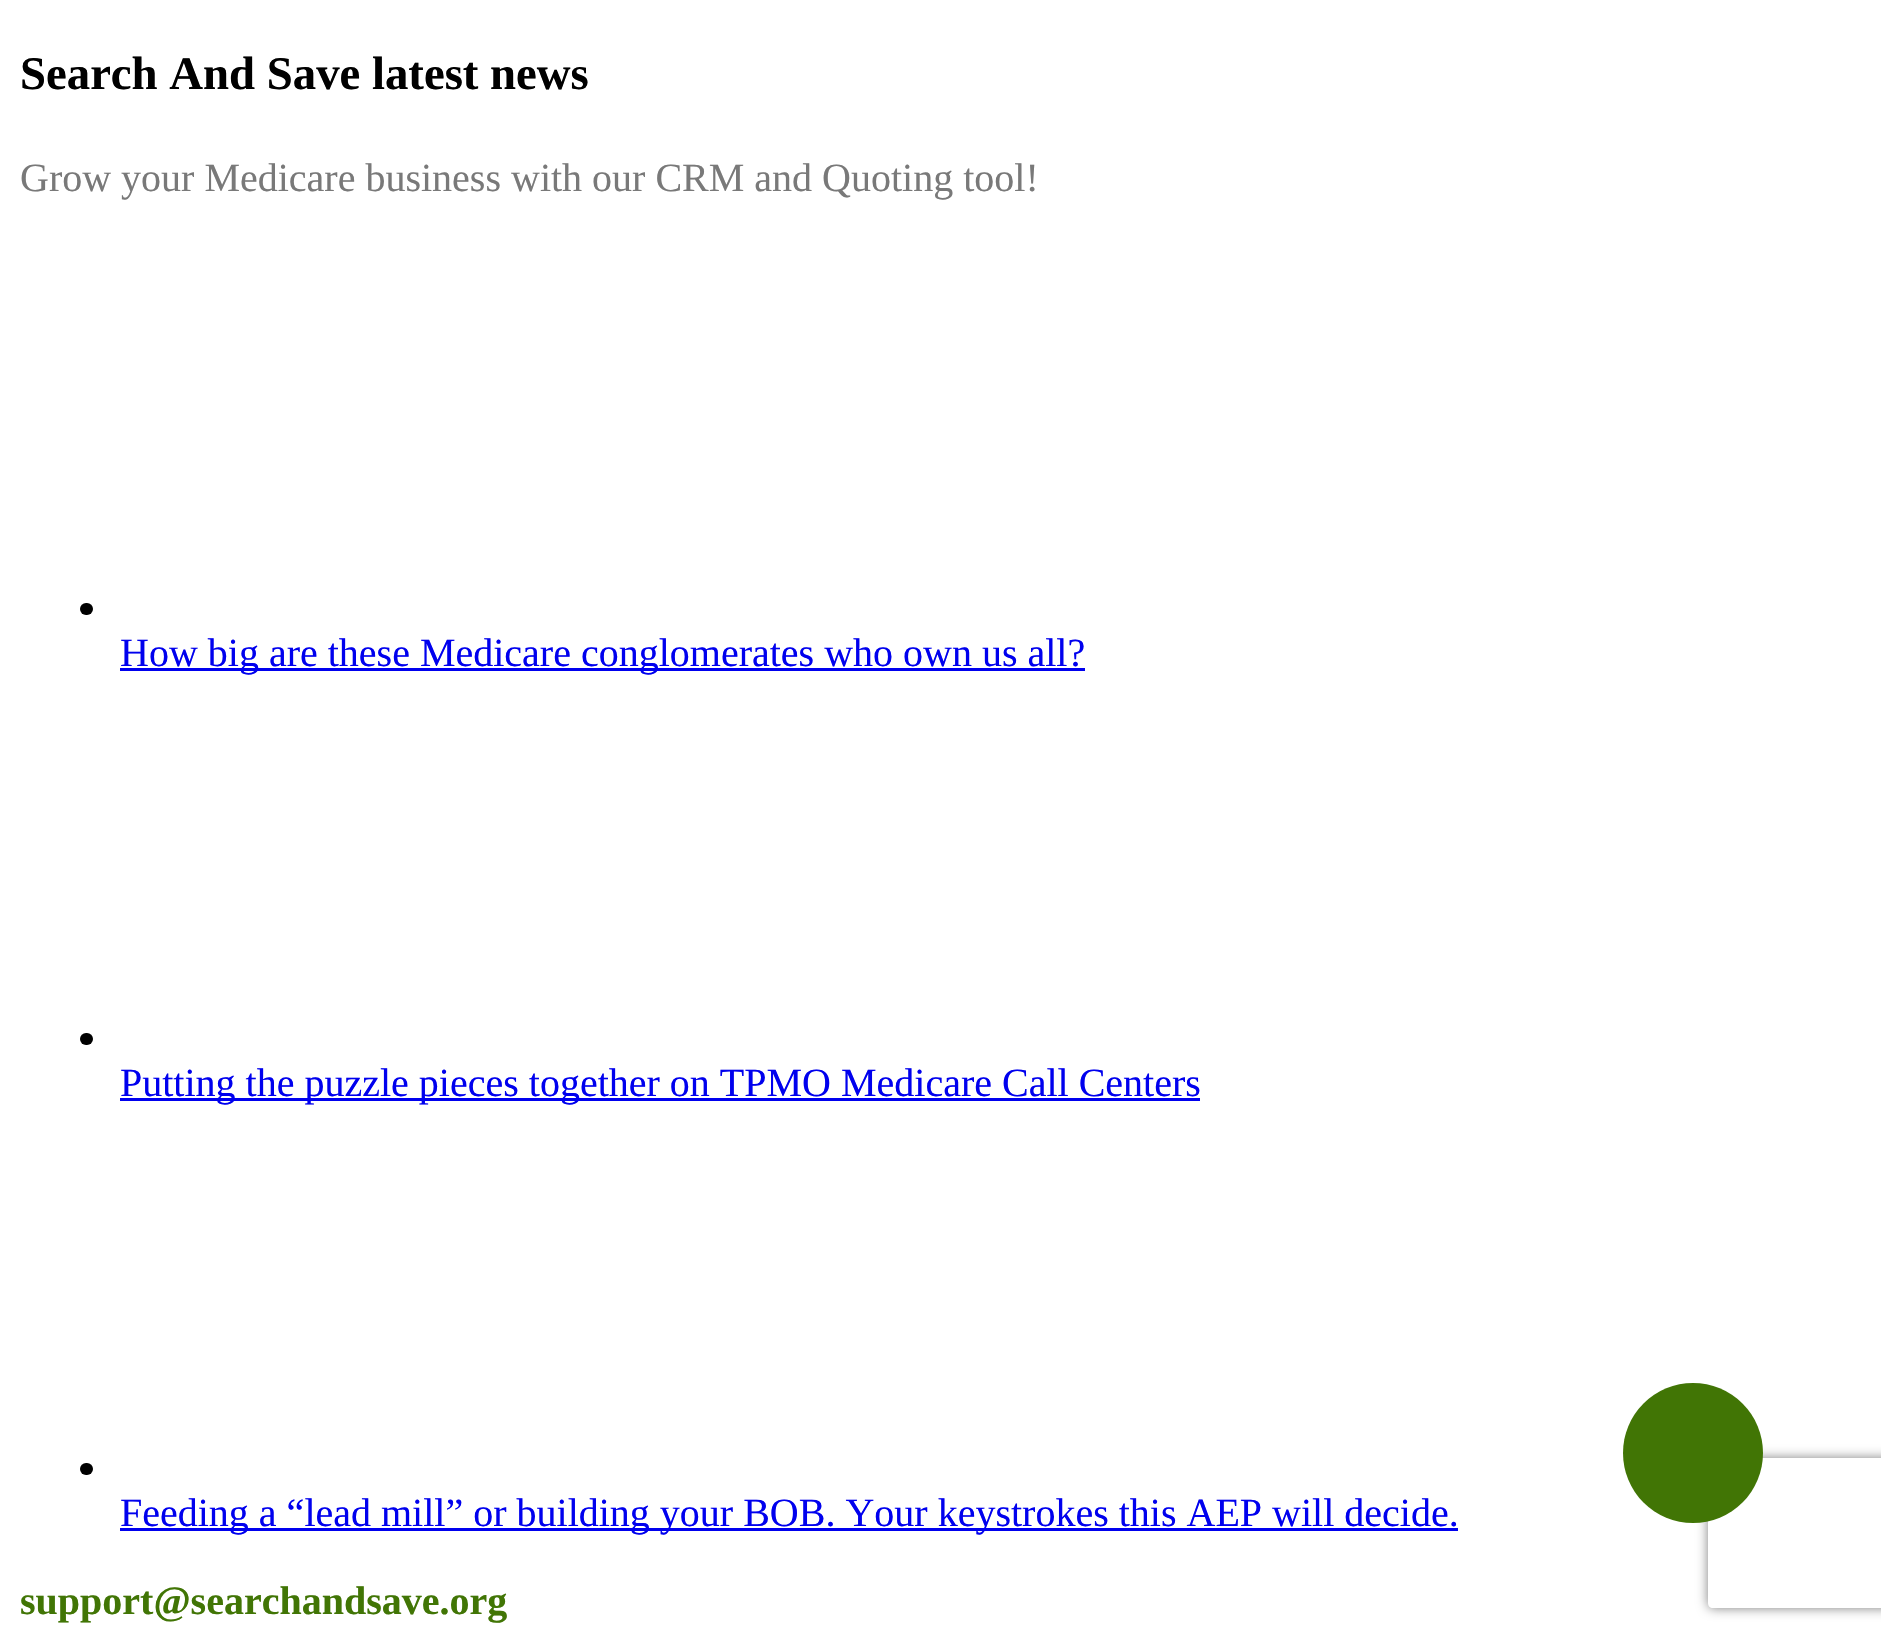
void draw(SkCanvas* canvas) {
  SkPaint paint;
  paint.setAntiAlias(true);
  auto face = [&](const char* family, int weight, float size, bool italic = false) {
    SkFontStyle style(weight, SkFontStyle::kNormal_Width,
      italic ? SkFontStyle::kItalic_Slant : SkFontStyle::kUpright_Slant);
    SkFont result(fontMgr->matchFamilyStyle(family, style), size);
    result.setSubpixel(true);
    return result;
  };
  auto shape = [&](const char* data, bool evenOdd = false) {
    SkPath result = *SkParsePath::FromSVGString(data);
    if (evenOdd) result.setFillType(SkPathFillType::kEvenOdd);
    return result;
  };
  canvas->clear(0xffffffff);
  paint.setColor(0xff000000);
  canvas->drawRoundRect(SkRect::MakeXYWH(80, 603, 13, 12), 6, 6, paint);
  paint.setColor(0xff0000ee);
  canvas->drawRect(SkRect::MakeXYWH(120, 668, 965, 3), paint);
  paint.setColor(0xff000000);
  canvas->drawRoundRect(SkRect::MakeXYWH(80, 1033, 13, 12), 6, 6, paint);
  paint.setColor(0xff0000ee);
  canvas->drawRect(SkRect::MakeXYWH(120, 1098, 1080, 3), paint);
  paint.setColor(0xff000000);
  canvas->drawRoundRect(SkRect::MakeXYWH(80, 1463, 13, 12), 6, 6, paint);
  paint.setColor(0xff0000ee);
  canvas->drawRect(SkRect::MakeXYWH(120, 1528, 1338, 3), paint);
  canvas->save();
  canvas->clipPath(shape("M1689 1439H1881V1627H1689ZM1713 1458H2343C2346 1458 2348 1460 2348 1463V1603C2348 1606 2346 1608 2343 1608H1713C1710 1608 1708 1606 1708 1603V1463C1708 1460 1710 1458 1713 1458Z", true), true);
  paint.setColor(0xff808080);
  paint.setMaskFilter(SkMaskFilter::MakeBlur(kNormal_SkBlurStyle, 6));
  canvas->drawRoundRect(SkRect::MakeXYWH(1708, 1458, 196, 150), 5, 5, paint);
  paint.setMaskFilter(nullptr);
  canvas->restore();
  paint.setColor(0xff417505);
  canvas->drawCircle(1693, 1453, 70, paint);
  auto f0 = face("Liberation Serif", 700, 46.75f);
  paint.setColor(0xff000000);
  canvas->drawString("Search And Save latest news", 20, 89, f0, paint);
  auto f1 = face("Liberation Serif", 400, 40);
  paint.setColor(0xff797979);
  canvas->drawString("Grow your Medicare business with our CRM and Quoting tool!", 20, 191, f1, paint);
  paint.setColor(0xff0000ee);
  {
    const struct { const char* s; float x, y; } items[] = {
      {"How big are these Medicare conglomerates who own us all?", 120, 666},
      {"Putting the puzzle pieces together on TPMO Medicare Call Centers", 120, 1096},
      {"Feeding a “lead mill” or building your BOB. Your keystrokes this AEP will decide.", 120, 1526},
    };
    for (auto [s, x, y] : items) {
      canvas->drawString(s, x, y, f1, paint);
    }
  }
  auto f2 = face("Liberation Serif", 700, 40);
  paint.setColor(0xff417505);
  canvas->drawString("support@searchandsave.org", 20, 1614, f2, paint);
}
